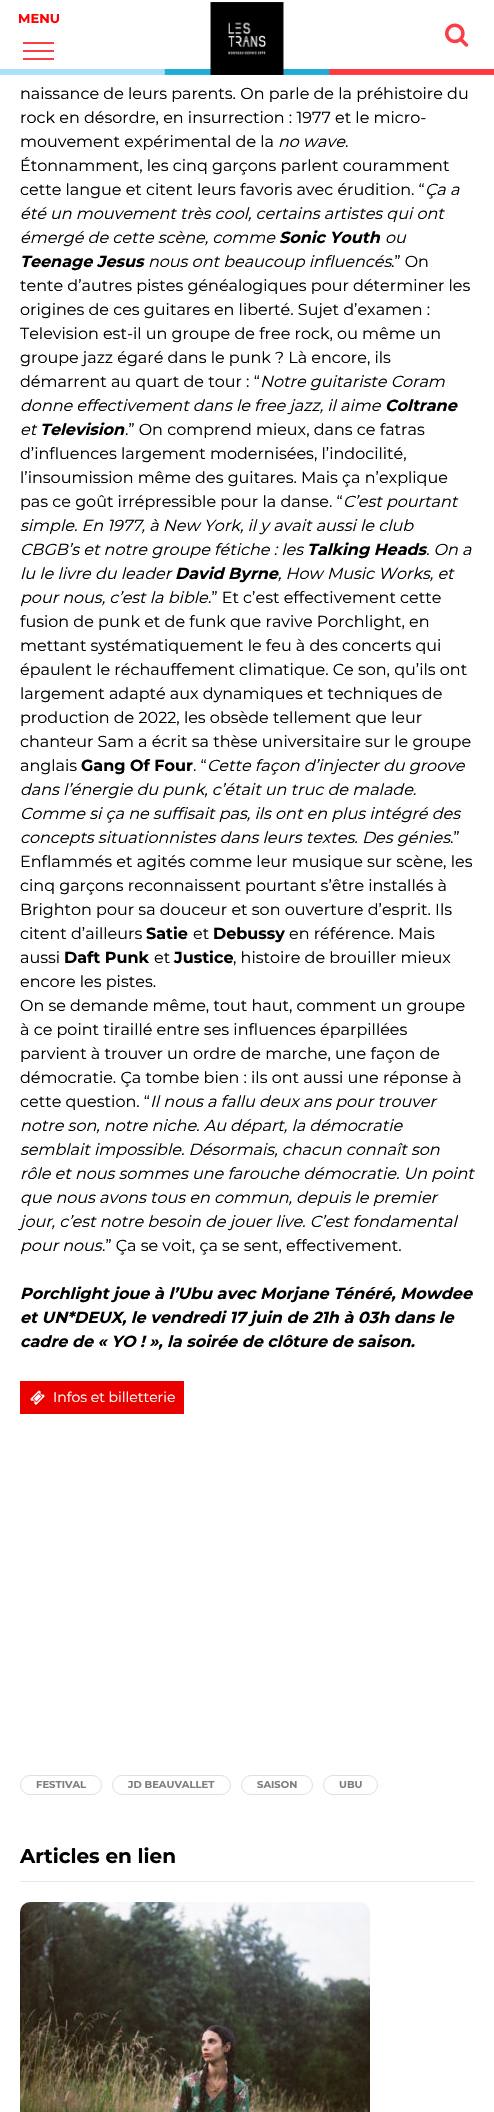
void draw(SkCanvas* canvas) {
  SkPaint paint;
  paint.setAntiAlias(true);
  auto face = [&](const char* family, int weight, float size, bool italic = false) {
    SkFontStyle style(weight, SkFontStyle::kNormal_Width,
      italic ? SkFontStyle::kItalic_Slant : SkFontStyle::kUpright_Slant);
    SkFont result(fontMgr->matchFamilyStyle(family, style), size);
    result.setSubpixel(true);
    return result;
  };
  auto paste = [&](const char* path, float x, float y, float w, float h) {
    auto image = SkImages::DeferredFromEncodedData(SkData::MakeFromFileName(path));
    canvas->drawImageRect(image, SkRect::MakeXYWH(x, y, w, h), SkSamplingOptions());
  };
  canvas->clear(0xffffffff);
  paste("img/3.png", 0, 69, 494, 6);
  paste("img/1.png", 210, 2, 74, 73);
  paste("img/2.png", 445, 23, 24, 24);
  {
    const struct { float x, y, w, h; SkColor color; } items[] = {
      {23, 50, 31, 2, 0xfffb3d45},
      {23, 42, 31, 2, 0xfffb3d45},
      {23, 58, 31, 2, 0xfffb3d45},
      {20, 1381, 164, 33, 0xffeb0000},
    };
    for (auto [x, y, w, h, color] : items) {
      paint.setColor(color);
      canvas->drawRect(SkRect::MakeXYWH(x, y, w, h), paint);
    }
  }
  paste("img/4.png", 30, 1390, 15, 15);
  paint.setStroke(true);
  paint.setStrokeWidth(1);
  paint.setColor(0xffe0e0e0);
  canvas->drawRoundRect(SkRect::MakeXYWH(20.5f, 1775.5f, 81, 19), 9.5f, 9.5f, paint);
  canvas->drawRoundRect(SkRect::MakeXYWH(112.5f, 1775.5f, 118, 19), 9.5f, 9.5f, paint);
  canvas->drawRoundRect(SkRect::MakeXYWH(241.5f, 1775.5f, 71, 19), 9.5f, 9.5f, paint);
  canvas->drawRoundRect(SkRect::MakeXYWH(323.5f, 1775.5f, 54, 19), 9.5f, 9.5f, paint);
  paint.setStroke(false);
  paint.setColor(0xffe7e7e7);
  canvas->drawRect(SkRect::MakeXYWH(20, 1881, 454, 1), paint);
  paste("img/5.png", 20, 1902, 350, 210);
  auto f0 = face("Montserrat", 700, 13);
  paint.setColor(0xffff0000);
  canvas->drawString("MENU", 18, 23, f0, paint);
  auto f1 = face("Montserrat", 400, 16);
  paint.setColor(0xff000000);
  {
    const struct { const char* s; float x, y; } items[] = {
      {"naissance de leurs parents. On parle de la préhistoire du", 20, 99},
      {"rock en désordre, en insurrection : 1977 et le micro-", 20, 123},
      {"mouvement expérimental de la", 20, 147},
    };
    for (auto [s, x, y] : items) {
      canvas->drawString(s, x, y, f1, paint);
    }
  }
  auto f2 = face("Montserrat", 400, 16, true);
  canvas->drawString("no wave", 278, 147, f2, paint);
  {
    const struct { const char* s; float x, y; } items[] = {
      {".", 345, 147},
      {"Étonnamment, les cinq garçons parlent couramment", 20, 171},
      {"cette langue et citent leurs favoris avec érudition. “", 20, 195},
    };
    for (auto [s, x, y] : items) {
      canvas->drawString(s, x, y, f1, paint);
    }
  }
  {
    const struct { const char* s; float x, y; } items[] = {
      {"Ça a", 425, 195},
      {"été un mouvement très cool, certains artistes qui ont", 20, 219},
      {"émergé de cette scène, comme", 20, 243},
    };
    for (auto [s, x, y] : items) {
      canvas->drawString(s, x, y, f2, paint);
    }
  }
  auto f3 = face("Montserrat", 700, 16, true);
  canvas->drawString("Sonic Youth", 279, 243, f3, paint);
  canvas->drawString("ou", 385, 243, f2, paint);
  canvas->drawString("Teenage Jesus", 20, 267, f3, paint);
  canvas->drawString("nous ont beaucoup influencés", 148, 267, f2, paint);
  {
    const struct { const char* s; float x, y; } items[] = {
      {".” On", 391, 267},
      {"tente d’autres pistes généalogiques pour déterminer les", 20, 291},
      {"origines de ces guitares en liberté. Sujet d’examen :", 20, 315},
      {"Television est-il un groupe de free rock, ou même un", 20, 339},
      {"groupe jazz égaré dans le punk ? Là encore, ils", 20, 363},
      {"démarrent au quart de tour : “", 20, 387},
    };
    for (auto [s, x, y] : items) {
      canvas->drawString(s, x, y, f1, paint);
    }
  }
  canvas->drawString("Notre guitariste Coram", 260, 387, f2, paint);
  canvas->drawString("donne effectivement dans le free jazz, il aime", 20, 411, f2, paint);
  canvas->drawString("Coltrane", 385, 411, f3, paint);
  canvas->drawString("et", 20, 435, f2, paint);
  canvas->drawString("Television", 40, 435, f3, paint);
  {
    const struct { const char* s; float x, y; } items[] = {
      {".” On comprend mieux, dans ce fatras", 125, 435},
      {"d’influences largement modernisées, l’indocilité,", 20, 459},
      {"l’insoumission même des guitares. Mais ça n’explique", 20, 483},
      {"pas ce goût irrépressible pour la danse. “", 20, 507},
    };
    for (auto [s, x, y] : items) {
      canvas->drawString(s, x, y, f1, paint);
    }
  }
  {
    const struct { const char* s; float x, y; } items[] = {
      {"C’est pourtant", 343, 507},
      {"simple. En 1977, à New York, il y avait aussi le club", 20, 531},
      {"CBGB’s et notre groupe fétiche : les", 20, 555},
    };
    for (auto [s, x, y] : items) {
      canvas->drawString(s, x, y, f2, paint);
    }
  }
  canvas->drawString("Talking Heads", 307, 555, f3, paint);
  canvas->drawString(". On a", 426, 555, f2, paint);
  canvas->drawString("lu le livre du leader", 20, 579, f2, paint);
  canvas->drawString("David Byrne", 175, 579, f3, paint);
  canvas->drawString(", How Music Works, et", 278, 579, f2, paint);
  canvas->drawString("pour nous, c’est la bible", 20, 603, f2, paint);
  {
    const struct { const char* s; float x, y; } items[] = {
      {".” Et c’est effectivement cette", 208, 603},
      {"fusion de punk et de funk que ravive Porchlight, en", 20, 627},
      {"mettant systématiquement le feu à des concerts qui", 20, 651},
      {"épaulent le réchauffement climatique. Ce son, qu’ils ont", 20, 675},
      {"largement adapté aux dynamiques et techniques de", 20, 699},
      {"production de 2022, les obsède tellement que leur", 20, 723},
      {"chanteur Sam a écrit sa thèse universitaire sur le groupe", 20, 747},
      {"anglais", 20, 771},
    };
    for (auto [s, x, y] : items) {
      canvas->drawString(s, x, y, f1, paint);
    }
  }
  auto f4 = face("Montserrat", 700, 16);
  canvas->drawString("Gang Of Four", 81, 771, f4, paint);
  canvas->drawString(". “", 193, 771, f1, paint);
  {
    const struct { const char* s; float x, y; } items[] = {
      {"Cette façon d’injecter du groove", 207, 771},
      {"dans l’énergie du punk, c’était un truc de malade.", 20, 795},
      {"Comme si ça ne suffisait pas, ils ont en plus intégré des", 20, 819},
      {"concepts situationnistes dans leurs textes. Des génies", 20, 843},
    };
    for (auto [s, x, y] : items) {
      canvas->drawString(s, x, y, f2, paint);
    }
  }
  {
    const struct { const char* s; float x, y; } items[] = {
      {".”", 450, 843},
      {"Enflammés et agités comme leur musique sur scène, les", 20, 867},
      {"cinq garçons reconnaissent pourtant s’être installés à", 20, 891},
      {"Brighton pour sa douceur et son ouverture d’esprit. Ils", 20, 915},
      {"citent d’ailleurs", 20, 939},
    };
    for (auto [s, x, y] : items) {
      canvas->drawString(s, x, y, f1, paint);
    }
  }
  canvas->drawString("Satie", 146, 939, f4, paint);
  canvas->drawString("et", 193, 939, f1, paint);
  canvas->drawString("Debussy", 213, 939, f4, paint);
  canvas->drawString("en référence. Mais", 289, 939, f1, paint);
  canvas->drawString("aussi", 20, 963, f1, paint);
  canvas->drawString("Daft Punk", 64, 963, f4, paint);
  canvas->drawString("et", 154, 963, f1, paint);
  canvas->drawString("Justice", 174, 963, f4, paint);
  {
    const struct { const char* s; float x, y; } items[] = {
      {", histoire de brouiller mieux", 233, 963},
      {"encore les pistes.", 20, 987},
      {"On se demande même, tout haut, comment un groupe", 20, 1011},
      {"à ce point tiraillé entre ses influences éparpillées", 20, 1035},
      {"parvient à trouver un ordre de marche, une façon de", 20, 1059},
      {"démocratie. Ça tombe bien : ils ont aussi une réponse à", 20, 1083},
      {"cette question. “", 20, 1107},
    };
    for (auto [s, x, y] : items) {
      canvas->drawString(s, x, y, f1, paint);
    }
  }
  {
    const struct { const char* s; float x, y; } items[] = {
      {"Il nous a fallu deux ans pour trouver", 150, 1107},
      {"notre son, notre niche. Au départ, la démocratie", 20, 1131},
      {"semblait impossible. Désormais, chacun connaît son", 20, 1155},
      {"rôle et nous sommes une farouche démocratie. Un point", 20, 1179},
      {"que nous avons tous en commun, depuis le premier", 20, 1203},
      {"jour, c’est notre besoin de jouer live. C’est fondamental", 20, 1227},
      {"pour nous", 20, 1251},
    };
    for (auto [s, x, y] : items) {
      canvas->drawString(s, x, y, f2, paint);
    }
  }
  canvas->drawString(".” Ça se voit, ça se sent, effectivement.", 102, 1251, f1, paint);
  {
    const struct { const char* s; float x, y; } items[] = {
      {"Porchlight joue à l’Ubu avec Morjane Ténéré, Mowdee", 20, 1299},
      {"et UN*DEUX, le vendredi 17 juin de 21h à 03h dans le", 20, 1323},
      {"cadre de « YO ! », la soirée de clôture de saison.", 20, 1347},
    };
    for (auto [s, x, y] : items) {
      canvas->drawString(s, x, y, f3, paint);
    }
  }
  auto f5 = face("Montserrat", 400, 14);
  paint.setColor(0xffffffff);
  canvas->drawString("Infos et billetterie", 53, 1402, f5, paint);
  auto f6 = face("Montserrat", 700, 10);
  paint.setColor(0xff7e7e7e);
  {
    const struct { const char* s; float x, y; } items[] = {
      {"FESTIVAL", 36, 1788},
      {"JD BEAUVALLET", 128, 1788},
      {"SAISON", 257, 1788},
      {"UBU", 339, 1788},
    };
    for (auto [s, x, y] : items) {
      canvas->drawString(s, x, y, f6, paint);
    }
  }
  auto f7 = face("Montserrat", 700, 20);
  paint.setColor(0xff000000);
  canvas->drawString("Articles en lien", 20, 1863, f7, paint);
}
